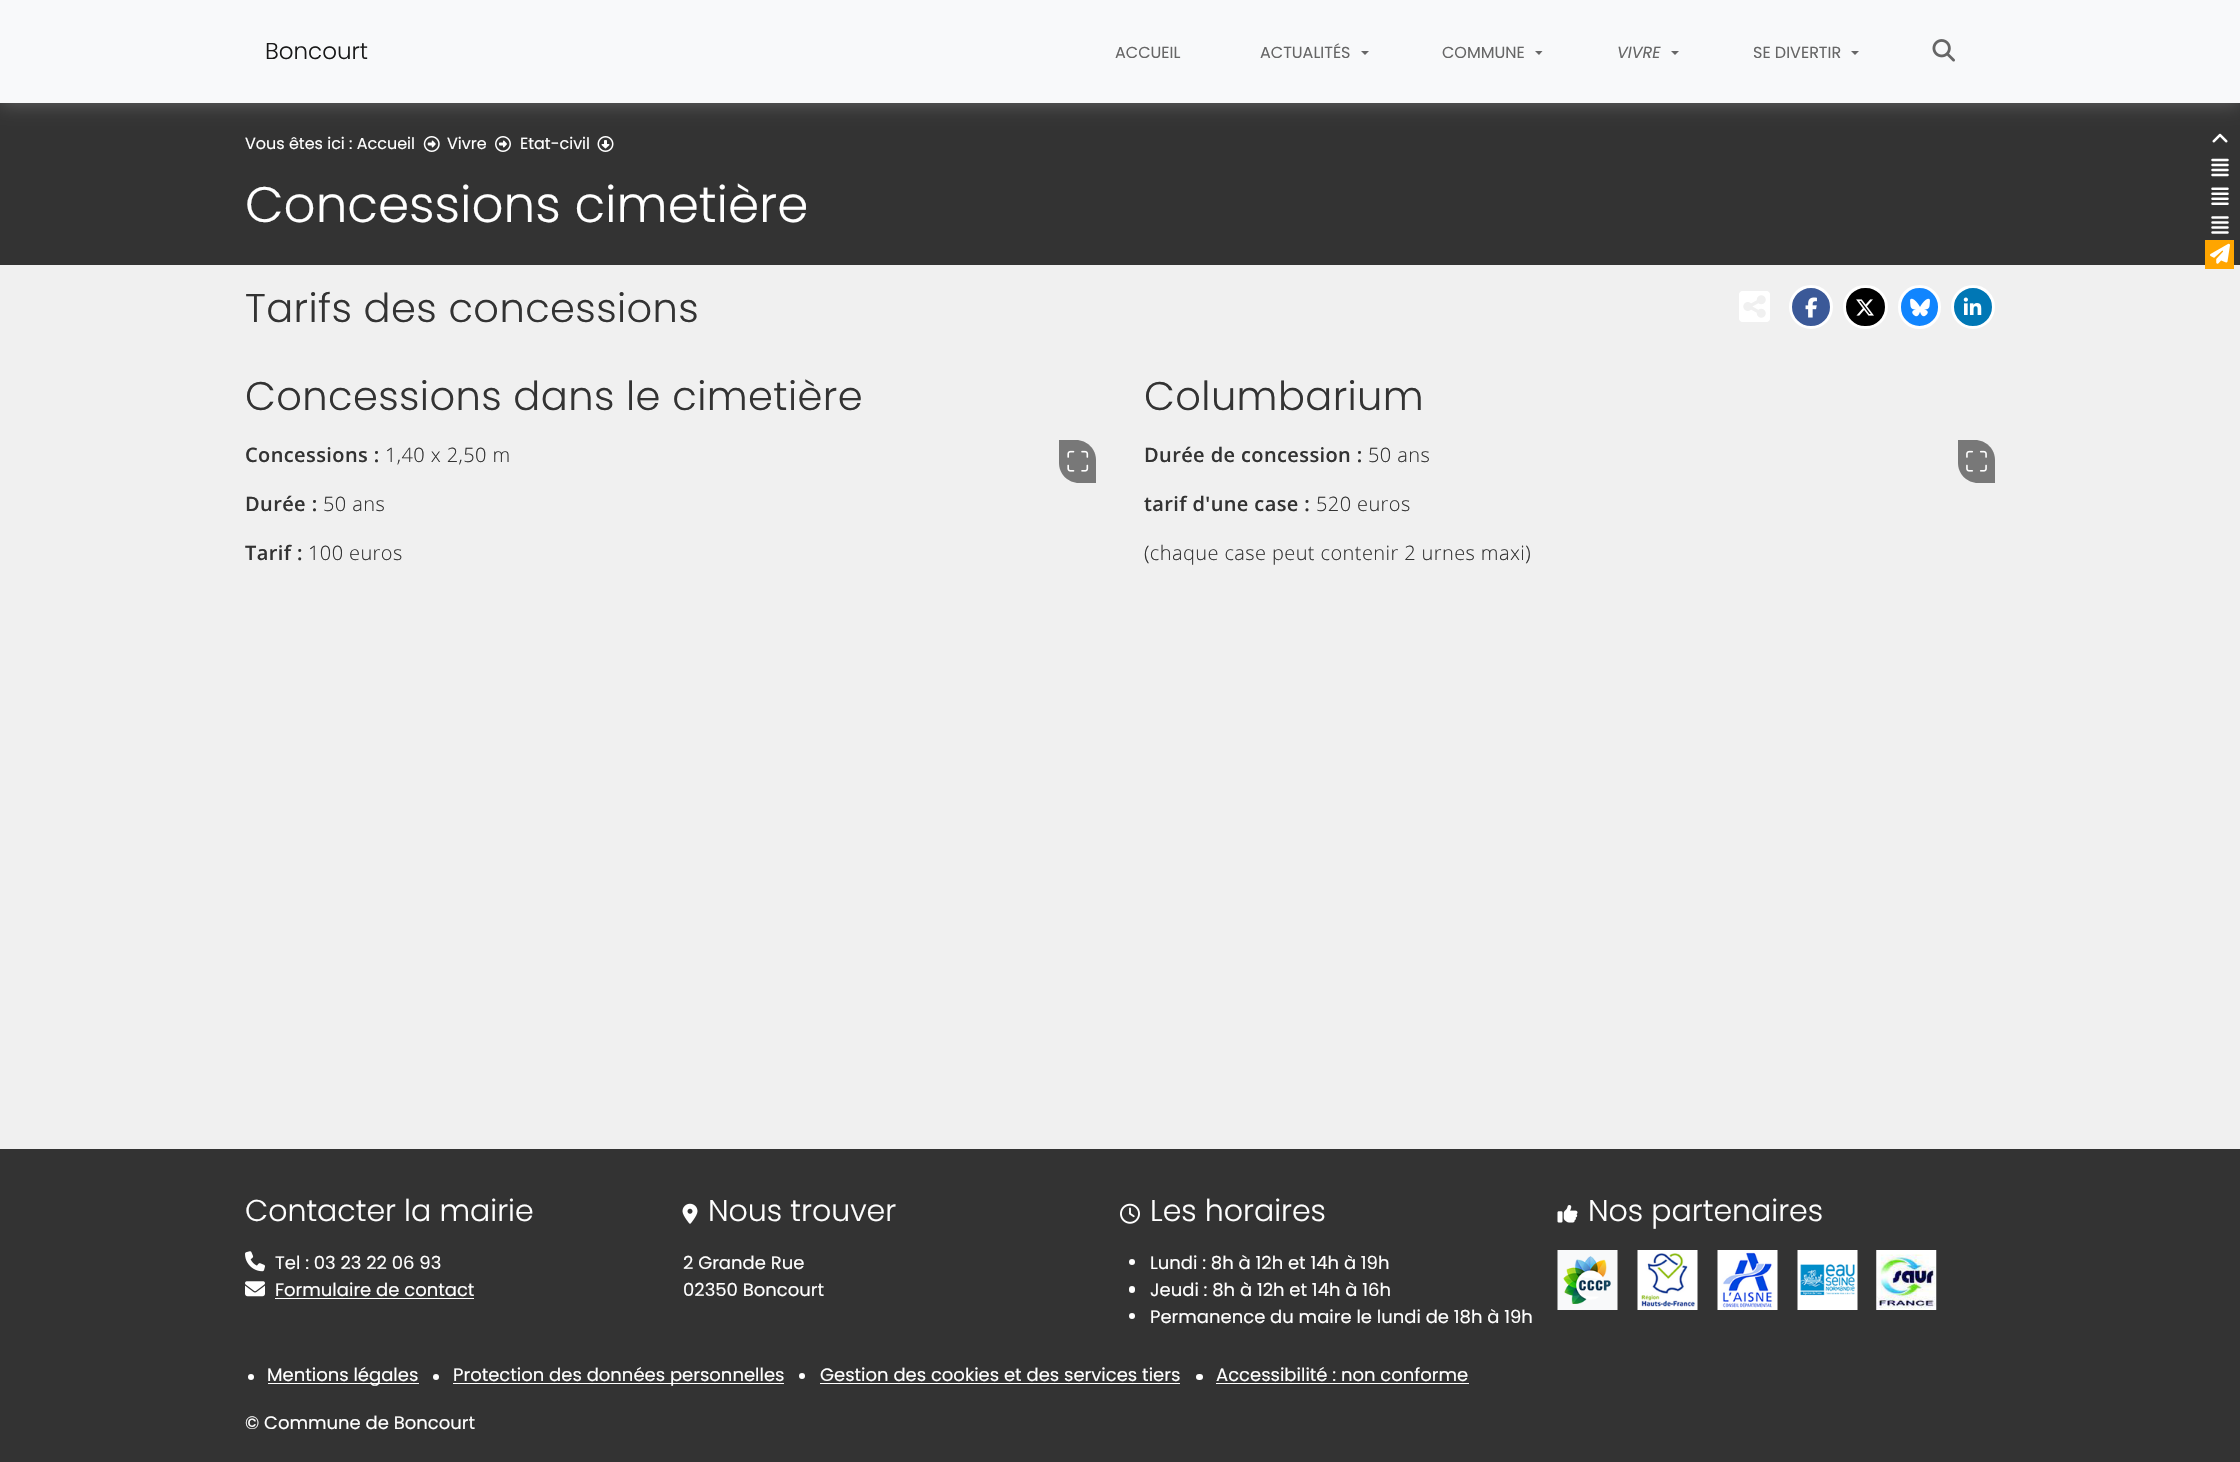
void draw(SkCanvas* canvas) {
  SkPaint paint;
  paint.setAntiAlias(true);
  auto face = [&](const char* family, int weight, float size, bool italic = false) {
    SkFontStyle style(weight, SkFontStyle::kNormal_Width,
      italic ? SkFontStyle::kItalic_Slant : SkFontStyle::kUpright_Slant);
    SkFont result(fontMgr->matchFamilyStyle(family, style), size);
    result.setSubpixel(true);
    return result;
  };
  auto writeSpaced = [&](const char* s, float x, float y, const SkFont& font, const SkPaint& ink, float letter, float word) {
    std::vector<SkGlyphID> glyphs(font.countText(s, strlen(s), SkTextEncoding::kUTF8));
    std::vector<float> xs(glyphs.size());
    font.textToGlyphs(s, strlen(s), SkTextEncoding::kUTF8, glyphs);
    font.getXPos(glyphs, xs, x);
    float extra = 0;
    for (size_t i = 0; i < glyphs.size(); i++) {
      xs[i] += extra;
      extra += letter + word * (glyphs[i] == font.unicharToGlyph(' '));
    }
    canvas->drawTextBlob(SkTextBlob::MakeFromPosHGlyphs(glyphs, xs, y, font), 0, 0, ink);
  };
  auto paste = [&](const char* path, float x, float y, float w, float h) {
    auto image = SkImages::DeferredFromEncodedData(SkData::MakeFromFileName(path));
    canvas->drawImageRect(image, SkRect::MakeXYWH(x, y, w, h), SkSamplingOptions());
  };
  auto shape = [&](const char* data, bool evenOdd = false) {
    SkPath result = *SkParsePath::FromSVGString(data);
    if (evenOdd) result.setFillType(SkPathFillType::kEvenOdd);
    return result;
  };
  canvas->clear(0xfff0f0f0);
  paint.setColor(0xff333333);
  canvas->drawRect(SkRect::MakeXYWH(0, 103, 2240, 162), paint);
  paint.setColor(0xff666666);
  paint.setMaskFilter(SkMaskFilter::MakeBlur(kNormal_SkBlurStyle, 9.5f));
  canvas->drawRect(SkRect::MakeXYWH(0, 0, 2240, 103), paint);
  paint.setMaskFilter(nullptr);
  paint.setColor(0xfff8f9fa);
  canvas->drawRect(SkRect::MakeXYWH(0, 0, 2240, 103), paint);
  paint.setColor(0xff666666);
  canvas->drawPath(shape("M1361 51H1369L1365 55Z"), paint);
  canvas->drawPath(shape("M1535 51H1542.5L1539 55Z"), paint);
  canvas->drawPath(shape("M1671 51H1679L1675 55Z"), paint);
  canvas->drawPath(shape("M1851 51H1859L1855 55Z"), paint);
  paste("img/1.png", 1932, 39, 23, 23);
  paste("img/2.png", 423, 136, 17, 16);
  paste("img/3.png", 495, 136, 16, 16);
  paste("img/4.png", 597, 136, 17, 16);
  paste("img/5.png", 1739, 291, 31, 31);
  paint.setColor(0xff3b5998);
  canvas->drawCircle(1811, 307, 20.5f, paint);
  paint.setStroke(true);
  paint.setStrokeWidth(3);
  paint.setColor(0xffffffff);
  canvas->drawCircle(1811, 307, 20.5f, paint);
  paste("img/6.png", 1805, 297, 12, 21);
  paint.setStroke(false);
  paint.setColor(0xff000000);
  canvas->drawRoundRect(SkRect::MakeXYWH(1844.5f, 286.5f, 42, 41), 20.5f, 20.5f, paint);
  paint.setStroke(true);
  paint.setColor(0xffffffff);
  canvas->drawRoundRect(SkRect::MakeXYWH(1844.5f, 286.5f, 42, 41), 20.5f, 20.5f, paint);
  paste("img/7.png", 1856, 299, 18, 17);
  paint.setStroke(false);
  paint.setColor(0xff1185fe);
  canvas->drawRoundRect(SkRect::MakeXYWH(1899.5f, 286.5f, 40, 41), 20, 20, paint);
  paint.setStroke(true);
  paint.setColor(0xffffffff);
  canvas->drawRoundRect(SkRect::MakeXYWH(1899.5f, 286.5f, 40, 41), 20, 20, paint);
  paste("img/8.png", 1910, 298, 20, 19);
  paint.setStroke(false);
  paint.setColor(0xff0077b5);
  canvas->drawCircle(1973, 307, 20.5f, paint);
  paint.setStroke(true);
  paint.setColor(0xffffffff);
  canvas->drawCircle(1973, 307, 20.5f, paint);
  paste("img/9.png", 1963, 297, 19, 18);
  paste("img/10.png", 2212, 133, 16, 10);
  paste("img/11.png", 2211, 158, 18, 19);
  paste("img/12.png", 2211, 187, 18, 18);
  paste("img/13.png", 2211, 216, 18, 18);
  paint.setStroke(false);
  paint.setColor(0xffffa500);
  canvas->drawRect(SkRect::MakeXYWH(2205, 240, 29, 29), paint);
  paste("img/14.png", 2210, 243, 20, 21);
  paint.setColor(0xff787878);
  canvas->drawPath(shape("M1059 440H1076C1087 440 1096 449 1096 460V483H1079C1068 483 1059 474 1059 463Z"), paint);
  paste("img/15.png", 1067, 450, 22, 22);
  canvas->drawPath(shape("M1958 440H1975C1986 440 1995 449 1995 460V483H1978C1967 483 1958 474 1958 463Z"), paint);
  paste("img/16.png", 1966, 450, 21, 22);
  paint.setColor(0xff333333);
  canvas->drawRect(SkRect::MakeXYWH(0, 1149, 2240, 313), paint);
  paste("img/17.png", 245, 1251, 20, 21);
  paste("img/18.png", 245, 1281, 20, 16);
  paint.setColor(0xffffffff);
  canvas->drawRect(SkRect::MakeXYWH(275, 1298, 199, 1), paint);
  paste("img/19.png", 682, 1203, 16, 21);
  paste("img/20.png", 1120, 1203, 20, 21);
  canvas->drawCircle(1132, 1262, 3, paint);
  canvas->drawRoundRect(SkRect::MakeXYWH(1129, 1286, 6, 7), 3, 3, paint);
  canvas->drawCircle(1132, 1316, 3, paint);
  paste("img/21.png", 1557, 1205, 21, 18);
  paste("img/22.png", 1557, 1250, 61, 60);
  paste("img/23.png", 1637, 1250, 61, 60);
  paste("img/24.png", 1717, 1250, 61, 60);
  paste("img/25.png", 1797, 1250, 61, 60);
  paste("img/26.png", 1876, 1250, 61, 60);
  canvas->drawCircle(251, 1377, 3, paint);
  canvas->drawRect(SkRect::MakeXYWH(268, 1383, 151, 1), paint);
  canvas->drawCircle(436, 1377, 3, paint);
  canvas->drawRect(SkRect::MakeXYWH(453, 1383, 331, 1), paint);
  canvas->drawCircle(802, 1376, 3, paint);
  canvas->drawRect(SkRect::MakeXYWH(820, 1383, 360, 1), paint);
  canvas->drawRoundRect(SkRect::MakeXYWH(1196, 1374, 7, 6), 3, 3, paint);
  canvas->drawRect(SkRect::MakeXYWH(1216, 1383, 253, 1), paint);
  auto f0 = face("Poppins", 300, 23);
  paint.setColor(0xff191919);
  canvas->drawString("Boncourt", 265, 59, f0, paint);
  auto f1 = face("Poppins", 400, 16);
  paint.setColor(0xff666666);
  {
    const struct { const char* s; float x, y; } items[] = {
      {"ACCUEIL", 1115, 58},
      {"ACTUALITÉS", 1260, 58},
      {"COMMUNE", 1442, 58},
    };
    for (auto [s, x, y] : items) {
      canvas->drawString(s, x, y, f1, paint);
    }
  }
  auto f2 = face("Poppins", 400, 16, true);
  canvas->drawString("VIVRE", 1617, 58, f2, paint);
  canvas->drawString("SE DIVERTIR", 1753, 58, f1, paint);
  paint.setColor(0xffffffff);
  {
    const struct { const char* s; float x, y; } items[] = {
      {"Vous êtes ici : Accueil", 245, 149},
      {"Vivre", 447, 149},
      {"Etat-civil", 520, 149},
    };
    for (auto [s, x, y] : items) {
      canvas->drawString(s, x, y, f1, paint);
    }
  }
  auto f3 = face("Poppins", 300, 50);
  canvas->drawString("Concessions cimetière", 245, 222, f3, paint);
  auto f4 = face("Poppins", 300, 40);
  paint.setColor(0xff333333);
  writeSpaced("Tarifs des concessions", 245, 322, f4, paint, 0.4f, 0);
  writeSpaced("Concessions dans le cimetière", 245, 410, f4, paint, 0.4f, 0);
  auto f5 = face("Open Sans", 600, 20);
  writeSpaced("Concessions :", 245, 462, f5, paint, 0.4f, 0);
  auto f6 = face("Open Sans", 300, 20);
  writeSpaced("1,40 x 2,50 m", 385, 462, f6, paint, 0.4f, 0);
  writeSpaced("Durée :", 245, 511, f5, paint, 0.4f, 0);
  writeSpaced("50 ans", 323, 511, f6, paint, 0.4f, 0);
  writeSpaced("Tarif :", 245, 560, f5, paint, 0.4f, 0);
  writeSpaced("100 euros", 308, 560, f6, paint, 0.4f, 0);
  writeSpaced("Columbarium", 1144, 410, f4, paint, 0.4f, 0);
  writeSpaced("Durée de concession :", 1144, 462, f5, paint, 0.4f, 0);
  writeSpaced("50 ans", 1368, 462, f6, paint, 0.4f, 0);
  writeSpaced("tarif d'une case :", 1144, 511, f5, paint, 0.4f, 0);
  writeSpaced("520 euros", 1316, 511, f6, paint, 0.4f, 0);
  writeSpaced("(chaque case peut contenir 2 urnes maxi)", 1144, 560, f6, paint, 0.4f, 0);
  auto f7 = face("Poppins", 300, 30);
  paint.setColor(0xffffffff);
  canvas->drawString("Contacter la mairie", 245, 1221, f7, paint);
  auto f8 = face("Poppins", 400, 18);
  canvas->drawString("Tel : 03 23 22 06 93", 275, 1269, f8, paint);
  canvas->drawString("Formulaire de contact", 275, 1296, f8, paint);
  canvas->drawString("Nous trouver", 708, 1221, f7, paint);
  canvas->drawString("2 Grande Rue", 683, 1269, f8, paint);
  canvas->drawString("02350 Boncourt", 683, 1296, f8, paint);
  canvas->drawString("Les horaires", 1150, 1221, f7, paint);
  {
    const struct { const char* s; float x, y; } items[] = {
      {"Lundi : 8h à 12h et 14h à 19h", 1150, 1269},
      {"Jeudi : 8h à 12h et 14h à 16h", 1150, 1296},
      {"Permanence du maire le lundi de 18h à 19h", 1150, 1323},
    };
    for (auto [s, x, y] : items) {
      canvas->drawString(s, x, y, f8, paint);
    }
  }
  canvas->drawString("Nos partenaires", 1588, 1221, f7, paint);
  {
    const struct { const char* s; float x, y; } items[] = {
      {"Mentions légales", 267, 1381},
      {"Protection des données personnelles", 453, 1381},
      {"Gestion des cookies et des services tiers", 820, 1381},
      {"Accessibilité : non conforme", 1216, 1381},
      {"© Commune de Boncourt", 245, 1429},
    };
    for (auto [s, x, y] : items) {
      canvas->drawString(s, x, y, f8, paint);
    }
  }
}
